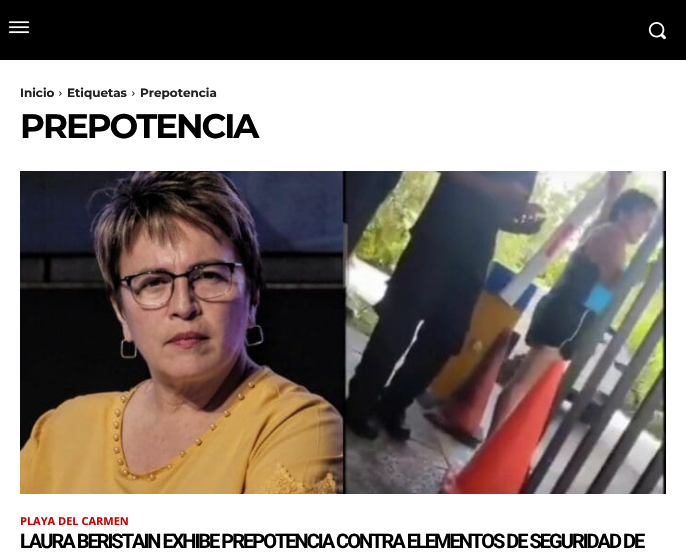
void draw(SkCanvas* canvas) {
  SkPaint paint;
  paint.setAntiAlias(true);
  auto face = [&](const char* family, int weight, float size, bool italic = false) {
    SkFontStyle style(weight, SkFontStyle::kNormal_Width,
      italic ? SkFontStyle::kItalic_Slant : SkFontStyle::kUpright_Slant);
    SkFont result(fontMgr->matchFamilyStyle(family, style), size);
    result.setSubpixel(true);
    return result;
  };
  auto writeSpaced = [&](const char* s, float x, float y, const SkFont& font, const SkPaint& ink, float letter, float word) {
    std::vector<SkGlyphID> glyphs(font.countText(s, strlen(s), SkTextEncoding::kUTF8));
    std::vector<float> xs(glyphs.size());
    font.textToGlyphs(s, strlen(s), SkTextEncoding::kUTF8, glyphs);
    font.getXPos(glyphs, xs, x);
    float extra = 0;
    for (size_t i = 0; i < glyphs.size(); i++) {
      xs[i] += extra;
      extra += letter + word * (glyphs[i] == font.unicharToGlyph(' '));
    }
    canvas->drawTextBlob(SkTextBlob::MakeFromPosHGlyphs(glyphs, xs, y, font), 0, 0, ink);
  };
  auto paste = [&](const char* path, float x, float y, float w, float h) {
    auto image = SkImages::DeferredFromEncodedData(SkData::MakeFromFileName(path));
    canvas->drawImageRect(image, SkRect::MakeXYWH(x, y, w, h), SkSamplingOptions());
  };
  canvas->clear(0xffffffff);
  paint.setColor(0xff000000);
  canvas->drawRect(SkRect::MakeXYWH(0, 0, 686, 60), paint);
  paste("img/1.png", 8, 21, 22, 13);
  paste("img/2.png", 648, 22, 18, 18);
  paste("img/3.png", 59, 91, 3, 5);
  paste("img/3.png", 132, 91, 3, 5);
  paste("img/4.png", 20, 171, 646, 323);
  auto f0 = face("Montserrat", 700, 12);
  paint.setColor(0xff222222);
  {
    const struct { const char* s; float x, y; } items[] = {
      {"Inicio", 20, 97},
      {"Etiquetas", 67, 97},
      {"Prepotencia", 140, 97},
    };
    for (auto [s, x, y] : items) {
      canvas->drawString(s, x, y, f0, paint);
    }
  }
  auto f1 = face("Montserrat", 700, 34);
  paint.setColor(0xff000000);
  writeSpaced("PREPOTENCIA", 20, 138, f1, paint, -2, 0);
  auto f2 = face("Open Sans", 700, 11);
  paint.setColor(0xffce0000);
  canvas->drawString("PLAYA DEL CARMEN", 20, 525, f2, paint);
  auto f3 = face("Roboto", 700, 20);
  paint.setColor(0xff000000);
  writeSpaced("LAURA BERISTAIN EXHIBE PREPOTENCIA CONTRA ELEMENTOS DE SEGURIDAD DE", 20, 548, f3, paint, -2, 0);
}
